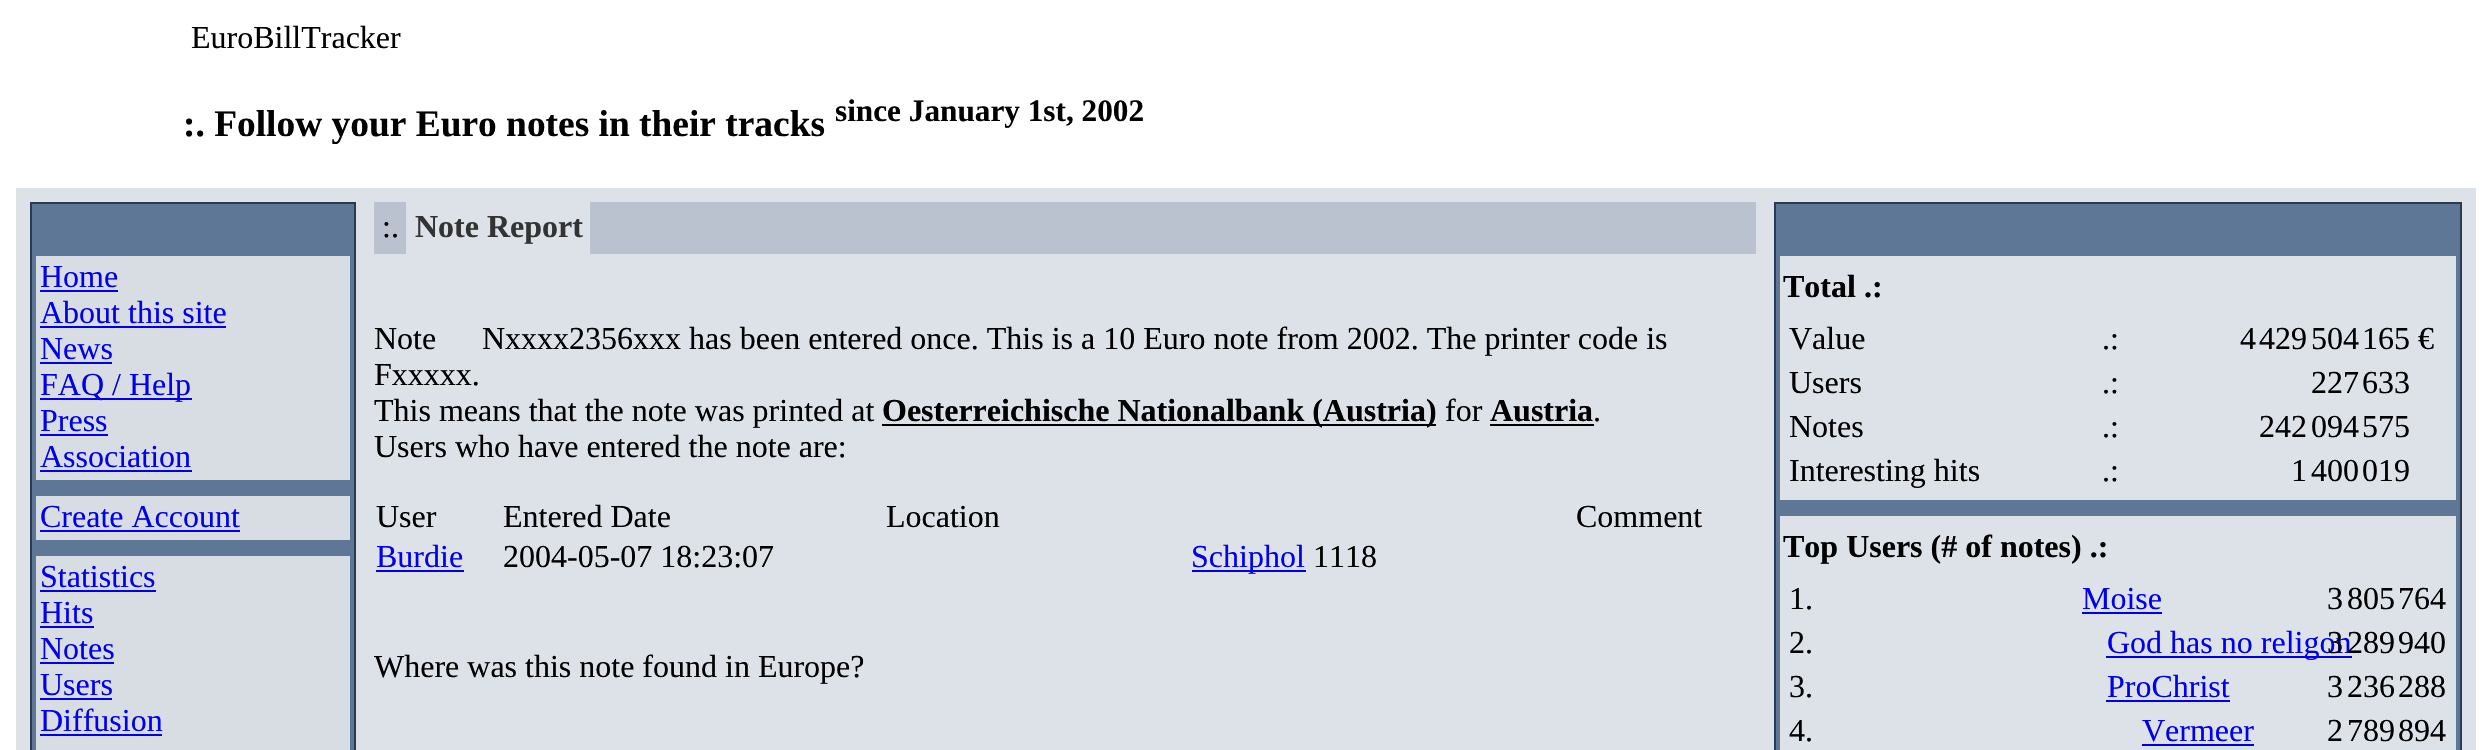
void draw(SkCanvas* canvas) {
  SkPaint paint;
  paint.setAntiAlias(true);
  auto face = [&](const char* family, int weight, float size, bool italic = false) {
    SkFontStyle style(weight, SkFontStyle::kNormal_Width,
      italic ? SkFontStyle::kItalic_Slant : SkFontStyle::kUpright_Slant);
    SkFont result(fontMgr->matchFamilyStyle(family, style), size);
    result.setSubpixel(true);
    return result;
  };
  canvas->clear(0xffffffff);
  {
    const struct { float x, y, w, h; SkColor color; } items[] = {
      {16, 188, 2460, 562, 0xffdde2e9},
      {30, 202, 326, 548, 0xff2d3851},
      {32, 204, 322, 546, 0xff5f7797},
      {36, 256, 314, 224, 0xffd8dde4},
      {40, 290, 78, 2, 0xff0000ee},
      {40, 326, 186, 2, 0xff0000ee},
      {40, 362, 72, 2, 0xff0000ee},
      {40, 398, 152, 2, 0xff0000ee},
      {40, 434, 68, 2, 0xff0000ee},
      {40, 470, 152, 2, 0xff0000ee},
      {36, 496, 314, 44, 0xffd8dde4},
      {40, 530, 200, 2, 0xff0000ee},
      {36, 556, 314, 194, 0xffd8dde4},
      {40, 590, 116, 2, 0xff0000ee},
      {40, 626, 54, 2, 0xff0000ee},
      {40, 662, 74, 2, 0xff0000ee},
      {40, 698, 72, 2, 0xff0000ee},
      {40, 734, 122, 2, 0xff0000ee},
      {374, 202, 32, 52, 0xffbac2cf},
      {590, 202, 1166, 52, 0xffbac2cf},
      {882, 424, 554, 2, 0xff000000},
      {1490, 424, 104, 2, 0xff000000},
      {376, 570, 88, 2, 0xff0000ee},
      {1192, 570, 114, 2, 0xff0000ee},
      {1774, 202, 688, 548, 0xff2d3851},
      {1776, 204, 684, 546, 0xff5f7797},
      {1780, 256, 676, 244, 0xffdde2e9},
      {1780, 516, 676, 234, 0xffdde2e9},
      {2082, 612, 80, 2, 0xff0000ee},
      {2106, 656, 246, 2, 0xff0000ee},
      {2106, 700, 124, 2, 0xff0000ee},
      {2142, 744, 112, 2, 0xff0000ee},
    };
    for (auto [x, y, w, h, color] : items) {
      paint.setColor(color);
      canvas->drawRect(SkRect::MakeXYWH(x, y, w, h), paint);
    }
  }
  auto f0 = face("Liberation Serif", 400, 32);
  paint.setColor(0xff000000);
  canvas->drawString("EuroBillTracker", 191, 48, f0, paint);
  auto f1 = face("Liberation Serif", 700, 37.4f);
  canvas->drawString(":. Follow your Euro notes in their tracks", 183, 136, f1, paint);
  auto f2 = face("Liberation Serif", 700, 31.25f);
  canvas->drawString("since January 1st, 2002", 835, 121, f2, paint);
  paint.setColor(0xff0000ee);
  {
    const struct { const char* s; float x, y; } items[] = {
      {"Home", 40, 287},
      {"About this site", 40, 323},
      {"News", 40, 359},
      {"FAQ / Help", 40, 395},
      {"Press", 40, 431},
      {"Association", 40, 467},
      {"Create Account", 40, 527},
      {"Statistics", 40, 587},
      {"Hits", 40, 623},
      {"Notes", 40, 659},
      {"Users", 40, 695},
      {"Diffusion", 40, 731},
    };
    for (auto [s, x, y] : items) {
      canvas->drawString(s, x, y, f0, paint);
    }
  }
  paint.setColor(0xff000000);
  canvas->drawString(":.", 382, 237, f0, paint);
  auto f3 = face("Liberation Serif", 700, 32);
  paint.setColor(0xff333333);
  canvas->drawString("Note Report", 415, 237, f3, paint);
  paint.setColor(0xff000000);
  {
    const struct { const char* s; float x, y; } items[] = {
      {"Note", 374, 349},
      {"Nxxxx2356xxx has been entered once. This is a 10 Euro note from 2002. The printer code is", 482, 349},
      {"Fxxxxx.", 374, 385},
      {"This means that the note was printed at", 374, 421},
    };
    for (auto [s, x, y] : items) {
      canvas->drawString(s, x, y, f0, paint);
    }
  }
  canvas->drawString("Oesterreichische Nationalbank (Austria)", 882, 421, f3, paint);
  canvas->drawString("for", 1445, 421, f0, paint);
  canvas->drawString("Austria", 1490, 421, f3, paint);
  {
    const struct { const char* s; float x, y; } items[] = {
      {".", 1593, 421},
      {"Users who have entered the note are:", 374, 457},
      {"User", 376, 527},
      {"Entered Date", 503, 527},
      {"Location", 886, 527},
      {"Comment", 1576, 527},
    };
    for (auto [s, x, y] : items) {
      canvas->drawString(s, x, y, f0, paint);
    }
  }
  paint.setColor(0xff0000ee);
  canvas->drawString("Burdie", 376, 567, f0, paint);
  paint.setColor(0xff000000);
  canvas->drawString("2004-05-07 18:23:07", 503, 567, f0, paint);
  paint.setColor(0xff0000ee);
  canvas->drawString("Schiphol", 1191, 567, f0, paint);
  paint.setColor(0xff000000);
  canvas->drawString("1118", 1313, 567, f0, paint);
  canvas->drawString("Where was this note found in Europe?", 374, 677, f0, paint);
  canvas->drawString("Total .:", 1783, 297, f3, paint);
  {
    const struct { const char* s; float x, y; } items[] = {
      {"Value", 1789, 349},
      {".:", 2102, 349},
      {"4", 2240, 349},
      {"429", 2259, 349},
      {"504", 2311, 349},
      {"165 €", 2362, 349},
      {"Users", 1789, 393},
      {".:", 2102, 393},
      {"227", 2311, 393},
      {"633", 2362, 393},
      {"Notes", 1789, 437},
      {".:", 2102, 437},
      {"242", 2259, 437},
      {"094", 2311, 437},
      {"575", 2362, 437},
      {"Interesting hits", 1789, 481},
      {".:", 2102, 481},
      {"1", 2291, 481},
      {"400", 2311, 481},
      {"019", 2362, 481},
    };
    for (auto [s, x, y] : items) {
      canvas->drawString(s, x, y, f0, paint);
    }
  }
  canvas->drawString("Top Users (# of notes) .:", 1783, 557, f3, paint);
  canvas->drawString("1.", 1789, 609, f0, paint);
  paint.setColor(0xff0000ee);
  canvas->drawString("Moise", 2082, 609, f0, paint);
  paint.setColor(0xff000000);
  {
    const struct { const char* s; float x, y; } items[] = {
      {"3", 2327, 609},
      {"805", 2347, 609},
      {"764", 2398, 609},
      {"2.", 1789, 653},
    };
    for (auto [s, x, y] : items) {
      canvas->drawString(s, x, y, f0, paint);
    }
  }
  paint.setColor(0xff0000ee);
  canvas->drawString("God has no religon", 2107, 653, f0, paint);
  paint.setColor(0xff000000);
  {
    const struct { const char* s; float x, y; } items[] = {
      {"3", 2327, 653},
      {"289", 2347, 653},
      {"940", 2398, 653},
      {"3.", 1789, 697},
    };
    for (auto [s, x, y] : items) {
      canvas->drawString(s, x, y, f0, paint);
    }
  }
  paint.setColor(0xff0000ee);
  canvas->drawString("ProChrist", 2107, 697, f0, paint);
  paint.setColor(0xff000000);
  {
    const struct { const char* s; float x, y; } items[] = {
      {"3", 2327, 697},
      {"236", 2347, 697},
      {"288", 2398, 697},
      {"4.", 1789, 741},
    };
    for (auto [s, x, y] : items) {
      canvas->drawString(s, x, y, f0, paint);
    }
  }
  paint.setColor(0xff0000ee);
  canvas->drawString("Vermeer", 2142, 741, f0, paint);
  paint.setColor(0xff000000);
  {
    const struct { const char* s; float x, y; } items[] = {
      {"2", 2327, 741},
      {"789", 2347, 741},
      {"894", 2398, 741},
    };
    for (auto [s, x, y] : items) {
      canvas->drawString(s, x, y, f0, paint);
    }
  }
}
